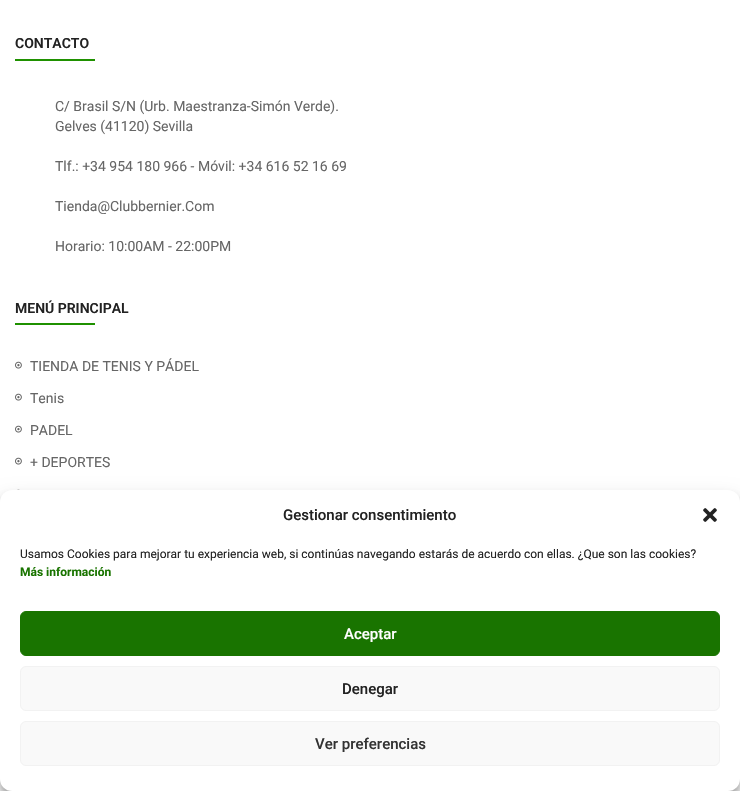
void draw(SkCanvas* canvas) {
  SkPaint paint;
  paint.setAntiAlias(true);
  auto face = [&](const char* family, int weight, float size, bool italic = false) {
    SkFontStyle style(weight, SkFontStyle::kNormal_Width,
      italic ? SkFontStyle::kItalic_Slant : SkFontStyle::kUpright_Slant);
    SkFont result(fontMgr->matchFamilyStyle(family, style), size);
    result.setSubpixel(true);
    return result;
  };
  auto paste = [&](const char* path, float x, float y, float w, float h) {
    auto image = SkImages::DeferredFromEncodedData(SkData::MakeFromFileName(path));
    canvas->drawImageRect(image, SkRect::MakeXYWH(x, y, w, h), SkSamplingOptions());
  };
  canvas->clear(0xffffffff);
  paint.setColor(0xff1f9100);
  canvas->drawRect(SkRect::MakeXYWH(15, 59, 80, 2), paint);
  canvas->drawRect(SkRect::MakeXYWH(15, 323, 80, 2), paint);
  paste("img/1.png", 15, 361, 7, 8);
  paste("img/1.png", 15, 393, 7, 8);
  paste("img/1.png", 15, 425, 7, 8);
  paste("img/1.png", 15, 457, 7, 8);
  paste("img/2.png", 17, 489, 3, 1);
  paint.setColor(0x3b000000);
  paint.setMaskFilter(SkMaskFilter::MakeBlur(kNormal_SkBlurStyle, 3));
  canvas->drawRoundRect(SkRect::MakeXYWH(0, 496, 740, 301), 12, 12, paint);
  paint.setMaskFilter(nullptr);
  paint.setColor(0x30000000);
  paint.setMaskFilter(SkMaskFilter::MakeBlur(kNormal_SkBlurStyle, 10));
  canvas->drawRoundRect(SkRect::MakeXYWH(0, 500, 740, 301), 12, 12, paint);
  paint.setMaskFilter(nullptr);
  paint.setColor(0xffffffff);
  canvas->drawRoundRect(SkRect::MakeXYWH(0, 490, 740, 301), 12, 12, paint);
  paste("img/3.png", 703, 508, 14, 14);
  paint.setColor(0xff197400);
  canvas->drawRoundRect(SkRect::MakeXYWH(20.5f, 611.5f, 699, 44), 5.5f, 5.5f, paint);
  paint.setStroke(true);
  paint.setStrokeWidth(1);
  canvas->drawRoundRect(SkRect::MakeXYWH(20.5f, 611.5f, 699, 44), 5.5f, 5.5f, paint);
  paint.setStroke(false);
  paint.setColor(0xfff9f9f9);
  canvas->drawRoundRect(SkRect::MakeXYWH(20.5f, 666.5f, 699, 44), 5.5f, 5.5f, paint);
  paint.setStroke(true);
  paint.setColor(0xfff2f2f2);
  canvas->drawRoundRect(SkRect::MakeXYWH(20.5f, 666.5f, 699, 44), 5.5f, 5.5f, paint);
  paint.setStroke(false);
  paint.setColor(0xfff9f9f9);
  canvas->drawRoundRect(SkRect::MakeXYWH(20.5f, 721.5f, 699, 44), 5.5f, 5.5f, paint);
  paint.setStroke(true);
  paint.setColor(0xfff2f2f2);
  canvas->drawRoundRect(SkRect::MakeXYWH(20.5f, 721.5f, 699, 44), 5.5f, 5.5f, paint);
  auto f0 = face("Roboto", 600, 14);
  paint.setStroke(false);
  paint.setColor(0xff222222);
  canvas->drawString("CONTACTO", 15, 48, f0, paint);
  auto f1 = face("Roboto", 400, 14);
  paint.setColor(0xff666666);
  {
    const struct { const char* s; float x, y; } items[] = {
      {"C/ Brasil S/N (Urb. Maestranza-Simón Verde).", 55, 111},
      {"Gelves (41120) Sevilla", 55, 131},
      {"Tlf.: +34 954 180 966 - Móvil: +34 616 52 16 69", 55, 171},
      {"Tienda@Clubbernier.Com", 55, 211},
      {"Horario: 10:00AM - 22:00PM", 55, 251},
    };
    for (auto [s, x, y] : items) {
      canvas->drawString(s, x, y, f1, paint);
    }
  }
  paint.setColor(0xff222222);
  canvas->drawString("MENÚ PRINCIPAL", 15, 313, f0, paint);
  paint.setColor(0xff666666);
  {
    const struct { const char* s; float x, y; } items[] = {
      {"TIENDA DE TENIS Y PÁDEL", 30, 371},
      {"Tenis", 30, 403},
      {"PADEL", 30, 435},
      {"+ DEPORTES", 30, 467},
    };
    for (auto [s, x, y] : items) {
      canvas->drawString(s, x, y, f1, paint);
    }
  }
  auto f2 = face("Roboto", 500, 15);
  paint.setColor(0xff222222);
  canvas->drawString("Gestionar consentimiento", 283, 520, f2, paint);
  auto f3 = face("Roboto", 400, 12);
  canvas->drawString("Usamos Cookies para mejorar tu experiencia web, si continúas navegando estarás de acuerdo con ellas. ¿Que son las cookies?", 20, 558, f3, paint);
  auto f4 = face("Roboto", 700, 12);
  paint.setColor(0xff197400);
  canvas->drawString("Más información", 20, 576, f4, paint);
  paint.setColor(0xffffffff);
  canvas->drawString("Aceptar", 344, 639, f2, paint);
  paint.setColor(0xff222222);
  canvas->drawString("Denegar", 342, 694, f2, paint);
  paint.setColor(0xff333333);
  canvas->drawString("Ver preferencias", 315, 749, f2, paint);
}
